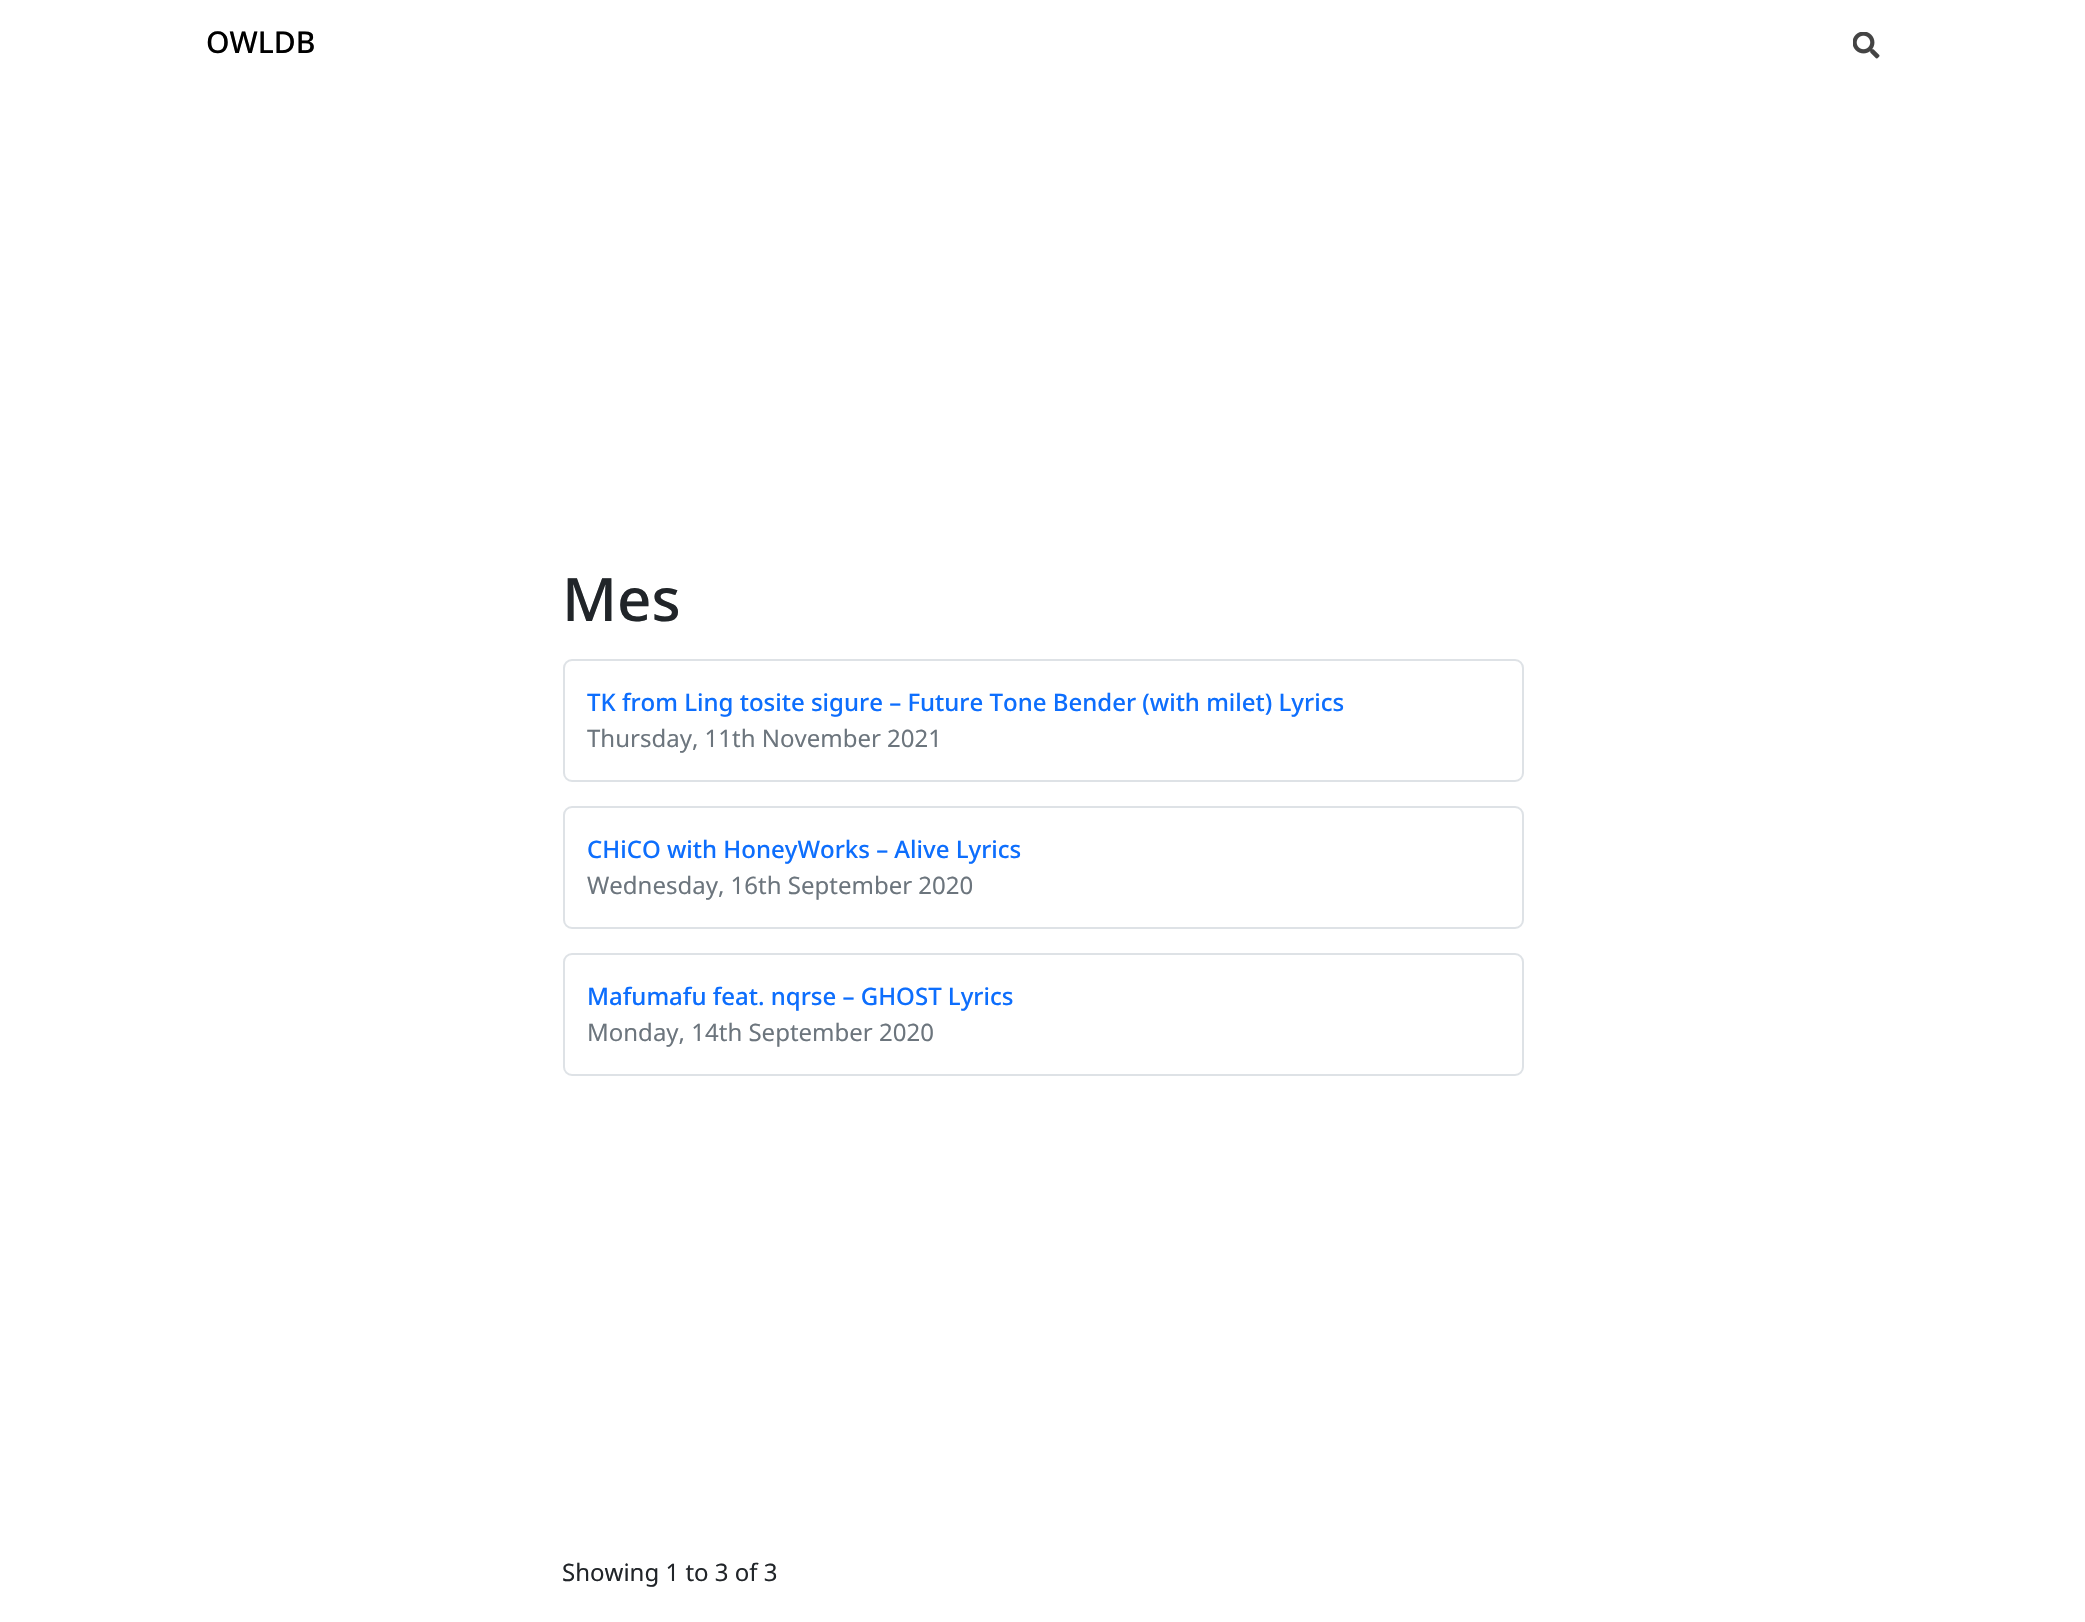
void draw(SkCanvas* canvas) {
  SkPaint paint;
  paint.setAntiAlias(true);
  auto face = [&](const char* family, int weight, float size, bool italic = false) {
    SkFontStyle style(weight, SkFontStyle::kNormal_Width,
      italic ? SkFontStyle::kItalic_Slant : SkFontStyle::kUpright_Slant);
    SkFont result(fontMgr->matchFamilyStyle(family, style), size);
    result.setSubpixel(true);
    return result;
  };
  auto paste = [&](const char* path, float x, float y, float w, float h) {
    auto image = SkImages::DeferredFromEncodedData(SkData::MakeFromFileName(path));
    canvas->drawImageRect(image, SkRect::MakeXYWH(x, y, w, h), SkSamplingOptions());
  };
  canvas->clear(0xffffffff);
  paste("img/1.png", 1853, 32, 27, 27);
  paint.setStroke(true);
  paint.setStrokeWidth(2);
  paint.setColor(0xffdee2e6);
  canvas->drawRoundRect(SkRect::MakeXYWH(564, 660, 959, 121), 8, 8, paint);
  canvas->drawRoundRect(SkRect::MakeXYWH(564, 807, 959, 121), 8, 8, paint);
  canvas->drawRoundRect(SkRect::MakeXYWH(564, 954, 959, 121), 8, 8, paint);
  auto f0 = face("Noto Sans", 500, 30);
  paint.setStroke(false);
  paint.setColor(0xff000000);
  canvas->drawString("OWLDB", 206, 53, f0, paint);
  auto f1 = face("Noto Sans", 500, 60);
  paint.setColor(0xff212529);
  canvas->drawString("Mes", 562, 621, f1, paint);
  auto f2 = face("Noto Sans", 500, 24);
  paint.setColor(0xff0d6efd);
  canvas->drawString("TK from Ling tosite sigure – Future Tone Bender (with milet) Lyrics", 587, 711, f2, paint);
  auto f3 = face("Noto Sans", 400, 24);
  paint.setColor(0xff6c757d);
  canvas->drawString("Thursday, 11th November 2021", 587, 747, f3, paint);
  paint.setColor(0xff0d6efd);
  canvas->drawString("CHiCO with HoneyWorks – Alive Lyrics", 587, 858, f2, paint);
  paint.setColor(0xff6c757d);
  canvas->drawString("Wednesday, 16th September 2020", 587, 894, f3, paint);
  paint.setColor(0xff0d6efd);
  canvas->drawString("Mafumafu feat. nqrse – GHOST Lyrics", 587, 1005, f2, paint);
  paint.setColor(0xff6c757d);
  canvas->drawString("Monday, 14th September 2020", 587, 1041, f3, paint);
  paint.setColor(0xff212529);
  canvas->drawString("Showing 1 to 3 of 3", 562, 1581, f3, paint);
}
